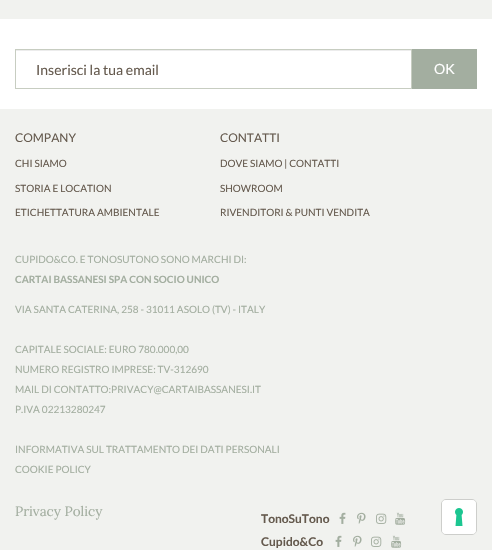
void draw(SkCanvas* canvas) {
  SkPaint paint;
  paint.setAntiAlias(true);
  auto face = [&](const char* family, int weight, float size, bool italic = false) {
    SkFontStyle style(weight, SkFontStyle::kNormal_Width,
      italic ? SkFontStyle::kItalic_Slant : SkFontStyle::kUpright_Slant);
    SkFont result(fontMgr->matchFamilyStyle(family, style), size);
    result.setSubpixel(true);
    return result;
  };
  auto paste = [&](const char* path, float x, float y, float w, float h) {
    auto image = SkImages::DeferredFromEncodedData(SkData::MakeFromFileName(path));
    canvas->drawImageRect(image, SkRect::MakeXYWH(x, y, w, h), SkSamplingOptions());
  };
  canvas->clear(0xffffffff);
  paint.setColor(0xfff1f2ef);
  canvas->drawRect(SkRect::MakeXYWH(0, 0, 492, 19), paint);
  paint.setColor(0xffececec);
  canvas->drawRect(SkRect::MakeXYWH(16, 50, 395, 1), paint);
  paint.setStroke(true);
  paint.setStrokeWidth(1);
  paint.setColor(0xffc7cdc1);
  canvas->drawRect(SkRect::MakeXYWH(15.5f, 49.5f, 396, 39), paint);
  paint.setStroke(false);
  paint.setColor(0xffa3aea0);
  canvas->drawRect(SkRect::MakeXYWH(412, 49, 65, 40), paint);
  paint.setColor(0xfff1f2ef);
  canvas->drawRect(SkRect::MakeXYWH(0, 109, 492, 441), paint);
  paste("img/1.png", 339, 512, 7, 12);
  paste("img/2.png", 357, 512, 9, 12);
  paste("img/3.png", 376, 513, 11, 11);
  paste("img/4.png", 395, 512, 11, 13);
  paste("img/1.png", 335, 535, 7, 12);
  paste("img/2.png", 353, 535, 9, 12);
  paste("img/3.png", 371, 536, 11, 11);
  paste("img/4.png", 391, 535, 11, 13);
  paint.setStroke(true);
  paint.setColor(0xffcdcecb);
  canvas->drawRoundRect(SkRect::MakeXYWH(441.5f, 499.5f, 35, 35), 4.5f, 4.5f, paint);
  paint.setStroke(false);
  paint.setColor(0xffffffff);
  canvas->drawRoundRect(SkRect::MakeXYWH(442, 500, 34, 34), 4, 4, paint);
  paste("img/5.png", 455, 508, 8, 18);
  auto f0 = face("Lato", 400, 14);
  paint.setColor(0xff655a4e);
  canvas->drawString("Inserisci la tua email", 36, 75, f0, paint);
  paint.setColor(0xffffffff);
  canvas->drawString("OK", 434, 74, f0, paint);
  auto f1 = face("Lato", 400, 12);
  paint.setColor(0xff655a4e);
  canvas->drawString("COMPANY", 15, 142, f1, paint);
  auto f2 = face("Lato", 400, 10);
  {
    const struct { const char* s; float x, y; } items[] = {
      {"CHI SIAMO", 15, 167},
      {"STORIA E LOCATION", 15, 192},
      {"ETICHETTATURA AMBIENTALE", 15, 216},
    };
    for (auto [s, x, y] : items) {
      canvas->drawString(s, x, y, f2, paint);
    }
  }
  canvas->drawString("CONTATTI", 220, 142, f1, paint);
  {
    const struct { const char* s; float x, y; } items[] = {
      {"DOVE SIAMO | CONTATTI", 220, 167},
      {"SHOWROOM", 220, 192},
      {"RIVENDITORI & PUNTI VENDITA", 220, 216},
    };
    for (auto [s, x, y] : items) {
      canvas->drawString(s, x, y, f2, paint);
    }
  }
  paint.setColor(0xffa3aea0);
  canvas->drawString("CUPIDO&CO. E TONOSUTONO SONO MARCHI DI:", 15, 263, f2, paint);
  auto f3 = face("Lato", 700, 10);
  canvas->drawString("CARTAI BASSANESI SPA CON SOCIO UNICO", 15, 283, f3, paint);
  {
    const struct { const char* s; float x, y; } items[] = {
      {"VIA SANTA CATERINA, 258 - 31011 ASOLO (TV) - ITALY", 15, 313},
      {"CAPITALE SOCIALE: EURO 780.000,00", 15, 353},
      {"NUMERO REGISTRO IMPRESE: TV-312690", 15, 373},
      {"MAIL DI CONTATTO:PRIVACY@CARTAIBASSANESI.IT", 15, 393},
      {"P.IVA 02213280247", 15, 413},
      {"INFORMATIVA SUL TRATTAMENTO DEI DATI PERSONALI", 15, 453},
      {"COOKIE POLICY", 15, 473},
    };
    for (auto [s, x, y] : items) {
      canvas->drawString(s, x, y, f2, paint);
    }
  }
  auto f4 = face("Lora", 400, 13.5f);
  canvas->drawString("Privacy Policy", 15, 516, f4, paint);
  auto f5 = face("Lato", 700, 12);
  paint.setColor(0xff655a4e);
  canvas->drawString("TonoSuTono", 261, 523, f5, paint);
  canvas->drawString("Cupido&Co", 261, 546, f5, paint);
}
